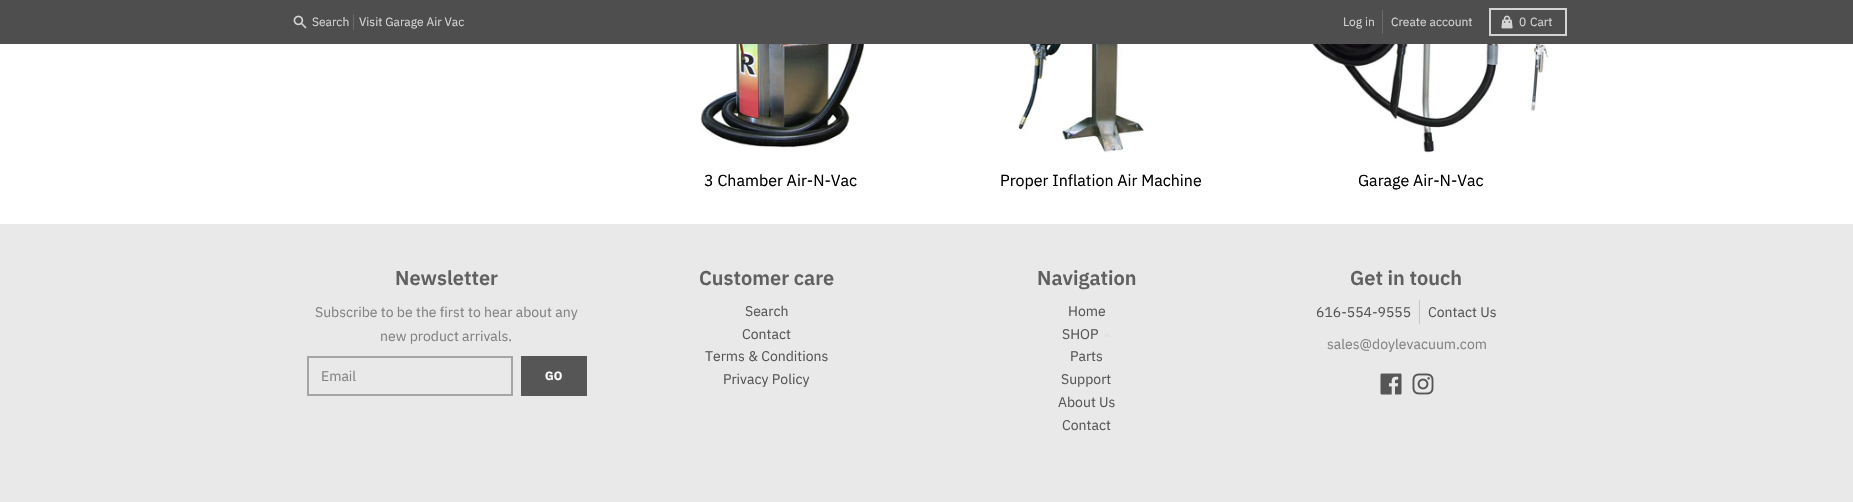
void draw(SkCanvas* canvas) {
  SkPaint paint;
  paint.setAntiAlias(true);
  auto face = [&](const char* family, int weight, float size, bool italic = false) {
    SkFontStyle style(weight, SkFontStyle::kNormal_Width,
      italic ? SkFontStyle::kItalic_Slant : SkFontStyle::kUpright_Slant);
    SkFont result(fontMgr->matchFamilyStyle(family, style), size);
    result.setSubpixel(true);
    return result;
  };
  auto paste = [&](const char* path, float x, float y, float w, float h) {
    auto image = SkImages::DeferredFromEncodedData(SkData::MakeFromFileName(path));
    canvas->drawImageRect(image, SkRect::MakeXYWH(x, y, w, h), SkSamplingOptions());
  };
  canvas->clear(0xffe9e9e9);
  paint.setColor(0xff4e4e4e);
  canvas->drawRect(SkRect::MakeXYWH(0, 0, 1853, 44), paint);
  paste("img/1.png", 293, 15, 14, 14);
  paint.setColor(0xff696969);
  canvas->drawRect(SkRect::MakeXYWH(353, 14, 1, 16), paint);
  canvas->drawRect(SkRect::MakeXYWH(1382, 10, 1, 24), paint);
  paint.setStroke(true);
  paint.setStrokeWidth(2);
  paint.setColor(0xffd4d4d4);
  canvas->drawRect(SkRect::MakeXYWH(1490, 9, 76, 26), paint);
  paste("img/2.png", 1501, 15, 12, 14);
  paint.setStroke(false);
  paint.setColor(0xffffffff);
  canvas->drawRect(SkRect::MakeXYWH(0, 44, 1853, 180), paint);
  paste("img/3.png", 700, 44, 165, 104);
  paste("img/4.png", 1018, 44, 127, 109);
  paste("img/5.png", 1296, 44, 253, 109);
  paint.setStroke(true);
  paint.setColor(0xffa5a5a5);
  canvas->drawRect(SkRect::MakeXYWH(308, 357, 204, 38), paint);
  paint.setStroke(false);
  {
    const struct { float x, y, w, h; SkColor color; } items[] = {
      {521, 356, 66, 40, 0xff565656},
      {1104, 334, 6, 3, 0xffe4e4e5},
      {1419, 300, 1, 24, 0xffc7c7c7},
    };
    for (auto [x, y, w, h, color] : items) {
      paint.setColor(color);
      canvas->drawRect(SkRect::MakeXYWH(x, y, w, h), paint);
    }
  }
  paste("img/6.png", 1380, 373, 22, 22);
  paste("img/7.png", 1412, 373, 22, 22);
  auto f0 = face("IBM Plex Sans", 400, 12);
  paint.setColor(0xffd4d4d4);
  {
    const struct { const char* s; float x, y; } items[] = {
      {"Search", 312, 26},
      {"Visit Garage Air Vac", 359, 26},
      {"Log in", 1343, 26},
      {"Create account", 1391, 26},
      {"0", 1519, 26},
      {"Cart", 1530, 26},
    };
    for (auto [s, x, y] : items) {
      canvas->drawString(s, x, y, f0, paint);
    }
  }
  auto f1 = face("IBM Plex Sans", 400, 16);
  paint.setColor(0xff000000);
  {
    const struct { const char* s; float x, y; } items[] = {
      {"3 Chamber Air-N-Vac", 704, 186},
      {"Proper Inflation Air Machine", 1000, 186},
      {"Garage Air-N-Vac", 1358, 186},
    };
    for (auto [s, x, y] : items) {
      canvas->drawString(s, x, y, f1, paint);
    }
  }
  auto f2 = face("IBM Plex Sans", 600, 20);
  paint.setColor(0xff606060);
  canvas->drawString("Newsletter", 395, 285, f2, paint);
  auto f3 = face("IBM Plex Sans", 400, 14);
  paint.setColor(0xff828282);
  {
    const struct { const char* s; float x, y; } items[] = {
      {"Subscribe to be the first to hear about any", 315, 317},
      {"new product arrivals.", 380, 341},
      {"Email", 321, 381},
    };
    for (auto [s, x, y] : items) {
      canvas->drawString(s, x, y, f3, paint);
    }
  }
  auto f4 = face("IBM Plex Sans", 700, 12);
  paint.setColor(0xffffffff);
  canvas->drawString("GO", 545, 380, f4, paint);
  paint.setColor(0xff606060);
  canvas->drawString("Customer care", 699, 285, f2, paint);
  paint.setColor(0xff565656);
  {
    const struct { const char* s; float x, y; } items[] = {
      {"Search", 745, 316},
      {"Contact", 742, 339},
      {"Terms & Conditions", 705, 361},
      {"Privacy Policy", 723, 384},
    };
    for (auto [s, x, y] : items) {
      canvas->drawString(s, x, y, f3, paint);
    }
  }
  paint.setColor(0xff606060);
  canvas->drawString("Navigation", 1037, 285, f2, paint);
  paint.setColor(0xff565656);
  {
    const struct { const char* s; float x, y; } items[] = {
      {"Home", 1068, 316},
      {"SHOP", 1062, 339},
      {"Parts", 1070, 361},
      {"Support", 1061, 384},
      {"About Us", 1058, 407},
      {"Contact", 1062, 430},
    };
    for (auto [s, x, y] : items) {
      canvas->drawString(s, x, y, f3, paint);
    }
  }
  paint.setColor(0xff606060);
  canvas->drawString("Get in touch", 1350, 285, f2, paint);
  paint.setColor(0xff565656);
  canvas->drawString("616-554-9555", 1316, 317, f3, paint);
  canvas->drawString("Contact Us", 1428, 317, f3, paint);
  paint.setColor(0xff828282);
  canvas->drawString("sales@doylevacuum.com", 1327, 349, f3, paint);
}
